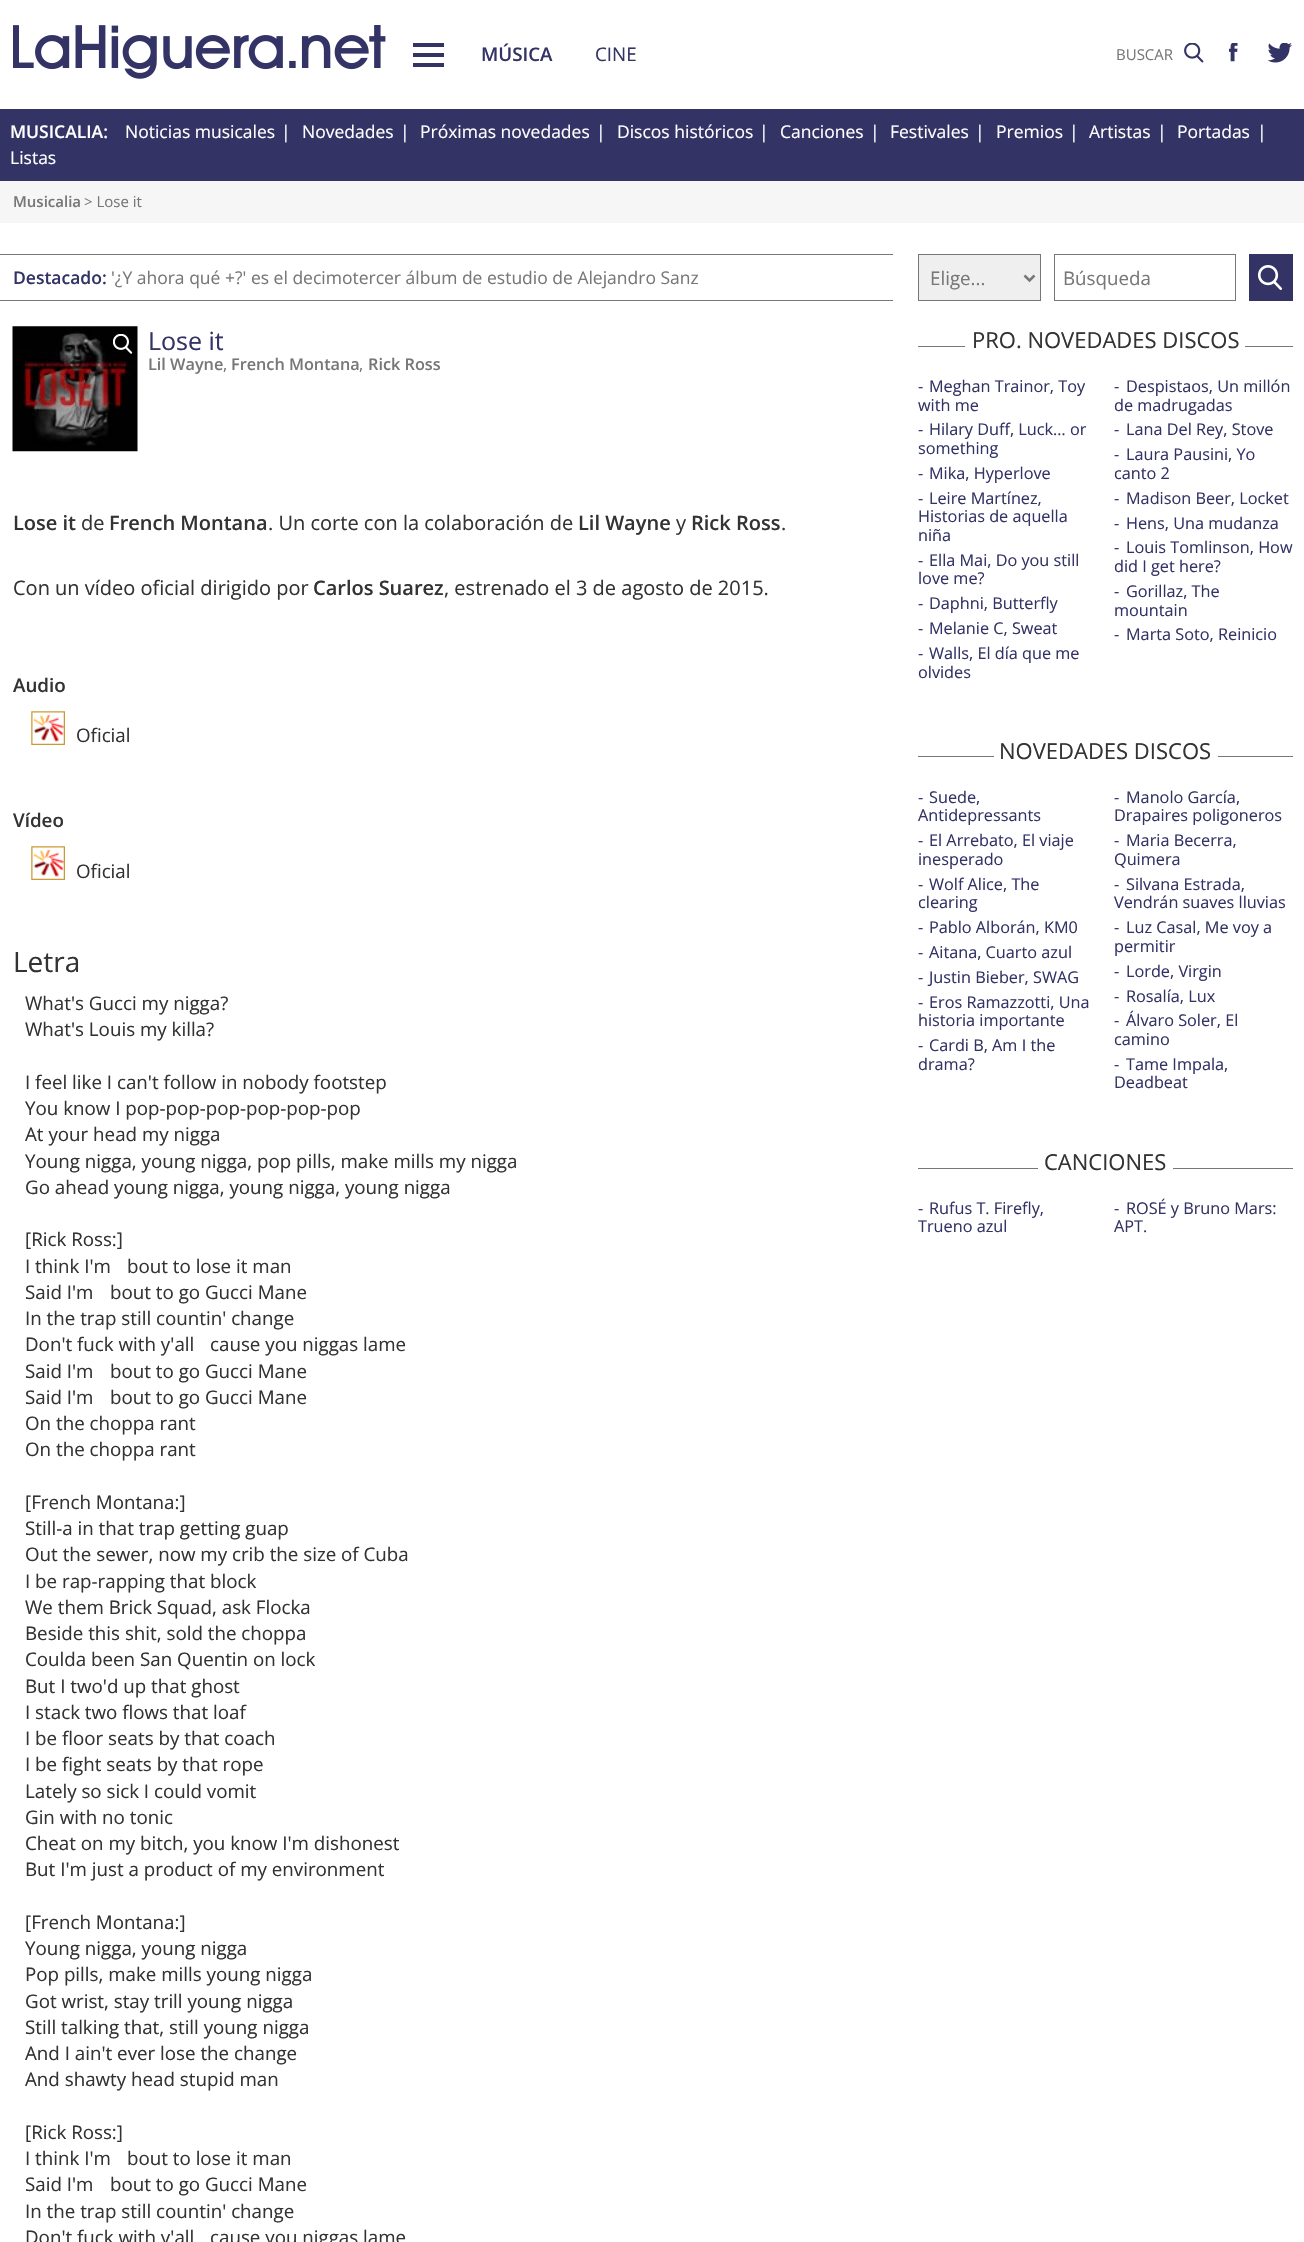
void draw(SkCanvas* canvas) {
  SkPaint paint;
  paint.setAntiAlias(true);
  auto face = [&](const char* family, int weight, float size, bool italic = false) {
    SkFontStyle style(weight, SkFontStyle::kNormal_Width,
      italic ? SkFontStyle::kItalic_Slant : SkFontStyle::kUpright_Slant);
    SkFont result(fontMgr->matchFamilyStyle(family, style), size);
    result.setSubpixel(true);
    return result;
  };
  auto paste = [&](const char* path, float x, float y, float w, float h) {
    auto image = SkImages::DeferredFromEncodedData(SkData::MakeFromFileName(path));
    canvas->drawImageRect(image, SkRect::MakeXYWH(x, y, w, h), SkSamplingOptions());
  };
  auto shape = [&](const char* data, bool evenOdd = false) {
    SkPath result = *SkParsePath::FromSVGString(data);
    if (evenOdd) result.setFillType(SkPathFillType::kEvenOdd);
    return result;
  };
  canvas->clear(0xffffffff);
  paste("img/1.png", 13, 25, 373, 54);
  {
    const struct { float x, y, w, h; SkColor color; } items[] = {
      {413, 43, 31, 4, 0xff333366},
      {413, 63, 31, 4, 0xff333366},
      {413, 53, 31, 4, 0xff333366},
    };
    for (auto [x, y, w, h, color] : items) {
      paint.setColor(color);
      canvas->drawRect(SkRect::MakeXYWH(x, y, w, h), paint);
    }
  }
  paste("img/2.png", 1184, 43, 20, 20);
  paste("img/3.png", 1229, 43, 9, 19);
  paste("img/4.png", 1268, 43, 24, 20);
  {
    const struct { float x, y, w, h; SkColor color; } items[] = {
      {0, 109, 1304, 72, 0xff333366},
      {0, 181, 1304, 42, 0xfff6f6f6},
      {0, 254, 893, 1, 0xff777777},
      {0, 300, 893, 1, 0xff777777},
    };
    for (auto [x, y, w, h, color] : items) {
      paint.setColor(color);
      canvas->drawRect(SkRect::MakeXYWH(x, y, w, h), paint);
    }
  }
  paint.setColor(0xffefefef);
  canvas->drawRect(SkRect::MakeXYWH(918.5f, 254.5f, 122, 46), paint);
  paint.setStroke(true);
  paint.setStrokeWidth(1);
  paint.setColor(0xff777777);
  canvas->drawRect(SkRect::MakeXYWH(918.5f, 254.5f, 122, 46), paint);
  paint.setStrokeWidth(2.5f);
  canvas->drawPath(shape("M1024.5 275.5L1029.5 280.5L1034.5 275.5"), paint);
  paint.setStrokeWidth(1);
  canvas->drawRect(SkRect::MakeXYWH(1054.5f, 254.5f, 181, 46), paint);
  paint.setStroke(false);
  paint.setColor(0xff333366);
  canvas->drawRect(SkRect::MakeXYWH(1249, 254, 44, 47), paint);
  paste("img/5.png", 1258, 265, 25, 25);
  paste("img/6.png", 12, 326, 126, 126);
  paste("img/7.png", 113, 334, 20, 20);
  paste("img/8.png", 31, 711, 34, 34);
  paste("img/8.png", 31, 846, 34, 34);
  {
    const struct { float x, y, w, h; SkColor color; } items[] = {
      {918, 346, 375, 1, 0xff777777},
      {965, 346, 280, 1, 0xffffffff},
      {918, 756, 375, 1, 0xff777777},
      {994, 756, 224, 1, 0xffffffff},
      {918, 1168, 375, 1, 0xff777777},
      {1038, 1168, 135, 1, 0xffffffff},
    };
    for (auto [x, y, w, h, color] : items) {
      paint.setColor(color);
      canvas->drawRect(SkRect::MakeXYWH(x, y, w, h), paint);
    }
  }
  auto f0 = face("Open Sans", 600, 18.75f);
  paint.setColor(0xff333366);
  canvas->drawString("MÚSICA", 481, 61, f0, paint);
  auto f1 = face("Open Sans", 400, 18.75f);
  canvas->drawString("CINE", 595, 61, f1, paint);
  auto f2 = face("Open Sans", 400, 15);
  paint.setColor(0xff777777);
  canvas->drawString("BUSCAR", 1116, 60, f2, paint);
  auto f3 = face("Open Sans", 600, 17.5f);
  paint.setColor(0xffffffff);
  canvas->drawString("MUSICALIA:", 10, 138, f3, paint);
  auto f4 = face("Open Sans", 400, 17.5f);
  {
    const struct { const char* s; float x, y; } items[] = {
      {"Noticias musicales", 125, 138},
      {"|", 281, 138},
      {"Novedades", 302, 138},
      {"|", 400, 138},
      {"Próximas novedades", 420, 138},
      {"|", 596, 138},
      {"Discos históricos", 617, 138},
      {"|", 759, 138},
      {"Canciones", 780, 138},
      {"|", 870, 138},
      {"Festivales", 890, 138},
      {"|", 975, 138},
      {"Premios", 996, 138},
      {"|", 1069, 138},
      {"Artistas", 1089, 138},
      {"|", 1157, 138},
      {"Portadas", 1177, 138},
      {"|", 1257, 138},
      {"Listas", 10, 164},
    };
    for (auto [s, x, y] : items) {
      canvas->drawString(s, x, y, f4, paint);
    }
  }
  auto f5 = face("Open Sans", 600, 15);
  paint.setColor(0xff777777);
  canvas->drawString("Musicalia", 13, 207, f5, paint);
  canvas->drawString("> Lose it", 84, 207, f2, paint);
  paint.setColor(0xff333366);
  canvas->drawString("Destacado:", 13, 284, f3, paint);
  paint.setColor(0xff777777);
  canvas->drawString("'¿Y ahora qué +?' es el decimotercer álbum de estudio de Alejandro Sanz", 111, 284, f4, paint);
  canvas->drawString("Elige...", 930, 285, f1, paint);
  canvas->drawString("Búsqueda", 1063, 285, f1, paint);
  auto f6 = face("Open Sans", 400, 25);
  paint.setColor(0xff333366);
  canvas->drawString("Lose it", 148, 350, f6, paint);
  auto f7 = face("Open Sans", 600, 16.25f);
  paint.setColor(0xff777777);
  canvas->drawString("Lil Wayne", 148, 370, f7, paint);
  auto f8 = face("Open Sans", 400, 16.25f);
  canvas->drawString(",", 223, 370, f8, paint);
  canvas->drawString("French Montana", 231, 370, f7, paint);
  canvas->drawString(",", 359, 370, f8, paint);
  canvas->drawString("Rick Ross", 368, 370, f7, paint);
  auto f9 = face("Open Sans", 600, 20);
  paint.setColor(0xff333333);
  canvas->drawString("Lose it", 13, 530, f9, paint);
  auto f10 = face("Open Sans", 400, 20);
  canvas->drawString("de", 81, 530, f10, paint);
  canvas->drawString("French Montana", 109, 530, f9, paint);
  canvas->drawString(". Un corte con la colaboración de", 268, 530, f10, paint);
  canvas->drawString("Lil Wayne", 578, 530, f9, paint);
  canvas->drawString("y", 676, 530, f10, paint);
  canvas->drawString("Rick Ross", 691, 530, f9, paint);
  canvas->drawString(".", 781, 530, f10, paint);
  canvas->drawString("Con un vídeo oficial dirigido por", 13, 595, f10, paint);
  canvas->drawString("Carlos Suarez", 313, 595, f9, paint);
  canvas->drawString(", estrenado el 3 de agosto de 2015.", 444, 595, f10, paint);
  canvas->drawString("Audio", 13, 692, f0, paint);
  canvas->drawString("Oficial", 76, 742, f1, paint);
  canvas->drawString("Vídeo", 13, 827, f0, paint);
  canvas->drawString("Oficial", 76, 878, f1, paint);
  auto f11 = face("Open Sans", 400, 28);
  canvas->drawString("Letra", 13, 972, f11, paint);
  {
    const struct { const char* s; float x, y; } items[] = {
      {"What's Gucci my nigga?", 25, 1010},
      {"What's Louis my killa?", 25, 1036},
      {"I feel like I can't follow in nobody footstep", 25, 1089},
      {"You know I pop-pop-pop-pop-pop-pop", 25, 1115},
      {"At your head my nigga", 25, 1141},
      {"Young nigga, young nigga, pop pills, make mills my nigga", 25, 1168},
      {"Go ahead young nigga, young nigga, young nigga", 25, 1194},
      {"[Rick Ross:]", 25, 1246},
      {"I think I'm", 25, 1273},
      {"bout to lose it man", 127, 1273},
      {"Said I'm", 25, 1299},
      {"bout to go Gucci Mane", 110, 1299},
      {"In the trap still countin' change", 25, 1325},
      {"Don't fuck with y'all", 25, 1351},
      {"cause you niggas lame", 210, 1351},
      {"Said I'm", 25, 1378},
      {"bout to go Gucci Mane", 110, 1378},
      {"Said I'm", 25, 1404},
      {"bout to go Gucci Mane", 110, 1404},
      {"On the choppa rant", 25, 1430},
      {"On the choppa rant", 25, 1456},
      {"[French Montana:]", 25, 1509},
      {"Still-a in that trap getting guap", 25, 1535},
      {"Out the sewer, now my crib the size of Cuba", 25, 1561},
      {"I be rap-rapping that block", 25, 1588},
      {"We them Brick Squad, ask Flocka", 25, 1614},
      {"Beside this shit, sold the choppa", 25, 1640},
      {"Coulda been San Quentin on lock", 25, 1666},
      {"But I two'd up that ghost", 25, 1693},
      {"I stack two flows that loaf", 25, 1719},
      {"I be floor seats by that coach", 25, 1745},
      {"I be fight seats by that rope", 25, 1771},
      {"Lately so sick I could vomit", 25, 1798},
      {"Gin with no tonic", 25, 1824},
      {"Cheat on my bitch, you know I'm dishonest", 25, 1850},
      {"But I'm just a product of my environment", 25, 1876},
      {"[French Montana:]", 25, 1929},
      {"Young nigga, young nigga", 25, 1955},
      {"Pop pills, make mills young nigga", 25, 1981},
      {"Got wrist, stay trill young nigga", 25, 2008},
      {"Still talking that, still young nigga", 25, 2034},
      {"And I ain't ever lose the change", 25, 2060},
      {"And shawty head stupid man", 25, 2086},
      {"[Rick Ross:]", 25, 2139},
      {"I think I'm", 25, 2165},
      {"bout to lose it man", 127, 2165},
      {"Said I'm", 25, 2191},
      {"bout to go Gucci Mane", 110, 2191},
      {"In the trap still countin' change", 25, 2218},
      {"Don't fuck with y'all", 25, 2244},
      {"cause you niggas lame", 210, 2244},
    };
    for (auto [s, x, y] : items) {
      canvas->drawString(s, x, y, f1, paint);
    }
  }
  auto f12 = face("Open Sans", 400, 22);
  canvas->drawString("PRO. NOVEDADES DISCOS", 972, 348, f12, paint);
  paint.setColor(0xff333366);
  {
    const struct { const char* s; float x, y; } items[] = {
      {"-", 918, 392},
      {"Meghan Trainor, Toy", 929, 392},
      {"with me", 918, 411},
      {"-", 1114, 392},
      {"Despistaos, Un millón", 1126, 392},
      {"de madrugadas", 1114, 411},
      {"-", 918, 435},
      {"Hilary Duff, Luck… or", 929, 435},
      {"something", 918, 454},
      {"-", 1114, 435},
      {"Lana Del Rey, Stove", 1126, 435},
      {"-", 918, 479},
      {"Mika, Hyperlove", 929, 479},
      {"-", 1114, 460},
      {"Laura Pausini, Yo", 1126, 460},
      {"canto 2", 1114, 479},
      {"-", 918, 504},
      {"Leire Martínez,", 929, 504},
      {"Historias de aquella", 918, 522},
      {"niña", 918, 541},
      {"-", 1114, 504},
      {"Madison Beer, Locket", 1126, 504},
      {"-", 1114, 529},
      {"Hens, Una mudanza", 1126, 529},
      {"-", 918, 566},
      {"Ella Mai, Do you still", 929, 566},
      {"love me?", 918, 584},
      {"-", 1114, 553},
      {"Louis Tomlinson, How", 1126, 553},
      {"did I get here?", 1114, 572},
      {"-", 918, 609},
      {"Daphni, Butterfly", 929, 609},
      {"-", 1114, 597},
      {"Gorillaz, The", 1126, 597},
      {"mountain", 1114, 616},
      {"-", 918, 634},
      {"Melanie C, Sweat", 929, 634},
      {"-", 1114, 640},
      {"Marta Soto, Reinicio", 1126, 640},
      {"-", 918, 659},
      {"Walls, El día que me", 929, 659},
      {"olvides", 918, 678},
    };
    for (auto [s, x, y] : items) {
      canvas->drawString(s, x, y, f8, paint);
    }
  }
  paint.setColor(0xff333333);
  canvas->drawString("NOVEDADES DISCOS", 999, 759, f12, paint);
  paint.setColor(0xff333366);
  {
    const struct { const char* s; float x, y; } items[] = {
      {"-", 918, 803},
      {"Suede,", 929, 803},
      {"Antidepressants", 918, 821},
      {"-", 1114, 803},
      {"Manolo García,", 1126, 803},
      {"Drapaires poligoneros", 1114, 821},
      {"-", 918, 846},
      {"El Arrebato, El viaje", 929, 846},
      {"inesperado", 918, 865},
      {"-", 1114, 846},
      {"Maria Becerra,", 1126, 846},
      {"Quimera", 1114, 865},
      {"-", 918, 890},
      {"Wolf Alice, The", 929, 890},
      {"clearing", 918, 908},
      {"-", 1114, 890},
      {"Silvana Estrada,", 1126, 890},
      {"Vendrán suaves lluvias", 1114, 908},
      {"-", 918, 933},
      {"Pablo Alborán, KM0", 929, 933},
      {"-", 1114, 933},
      {"Luz Casal, Me voy a", 1126, 933},
      {"permitir", 1114, 952},
      {"-", 918, 958},
      {"Aitana, Cuarto azul", 929, 958},
      {"-", 918, 983},
      {"Justin Bieber, SWAG", 929, 983},
      {"-", 1114, 977},
      {"Lorde, Virgin", 1126, 977},
      {"-", 918, 1008},
      {"Eros Ramazzotti, Una", 929, 1008},
      {"historia importante", 918, 1026},
      {"-", 1114, 1002},
      {"Rosalía, Lux", 1126, 1002},
      {"-", 1114, 1026},
      {"Álvaro Soler, El", 1126, 1026},
      {"camino", 1114, 1045},
      {"-", 918, 1051},
      {"Cardi B, Am I the", 929, 1051},
      {"drama?", 918, 1070},
      {"-", 1114, 1070},
      {"Tame Impala,", 1126, 1070},
      {"Deadbeat", 1114, 1088},
    };
    for (auto [s, x, y] : items) {
      canvas->drawString(s, x, y, f8, paint);
    }
  }
  paint.setColor(0xff333333);
  canvas->drawString("CANCIONES", 1044, 1170, f12, paint);
  paint.setColor(0xff333366);
  {
    const struct { const char* s; float x, y; } items[] = {
      {"-", 918, 1214},
      {"Rufus T. Firefly,", 929, 1214},
      {"Trueno azul", 918, 1232},
      {"-", 1114, 1214},
      {"ROSÉ y Bruno Mars:", 1126, 1214},
      {"APT.", 1114, 1232},
    };
    for (auto [s, x, y] : items) {
      canvas->drawString(s, x, y, f8, paint);
    }
  }
}
